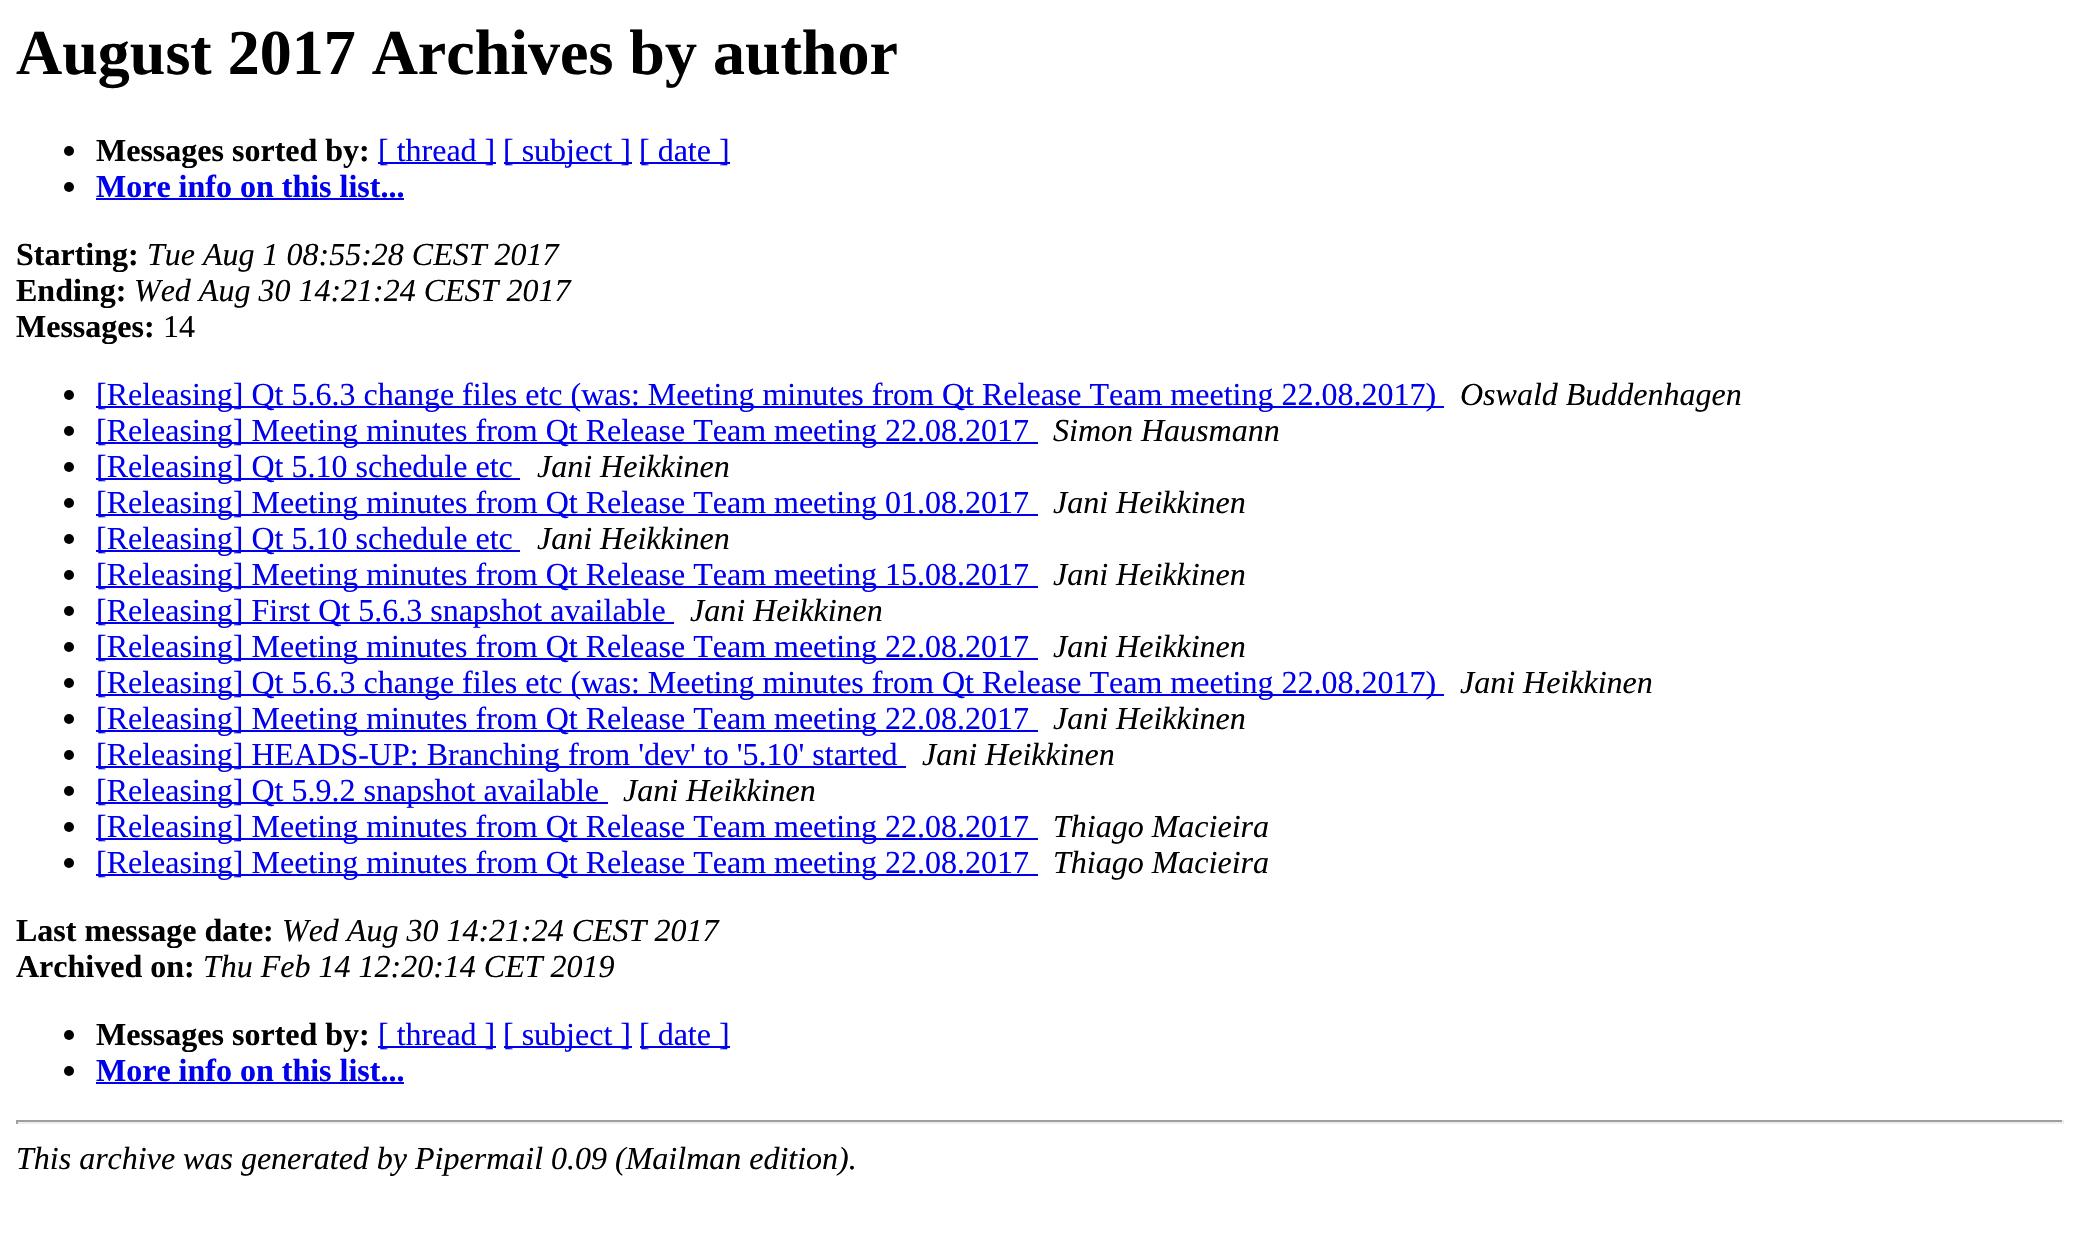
void draw(SkCanvas* canvas) {
  SkPaint paint;
  paint.setAntiAlias(true);
  auto face = [&](const char* family, int weight, float size, bool italic = false) {
    SkFontStyle style(weight, SkFontStyle::kNormal_Width,
      italic ? SkFontStyle::kItalic_Slant : SkFontStyle::kUpright_Slant);
    SkFont result(fontMgr->matchFamilyStyle(family, style), size);
    result.setSubpixel(true);
    return result;
  };
  canvas->clear(0xffffffff);
  paint.setColor(0xff000000);
  canvas->drawCircle(69, 151, 5, paint);
  {
    const struct { float x, y, w, h; SkColor color; } items[] = {
      {378, 162, 118, 2, 0xff0000ee},
      {504, 162, 128, 2, 0xff0000ee},
      {640, 162, 90, 2, 0xff0000ee},
    };
    for (auto [x, y, w, h, color] : items) {
      paint.setColor(color);
      canvas->drawRect(SkRect::MakeXYWH(x, y, w, h), paint);
    }
  }
  paint.setColor(0xff000000);
  canvas->drawCircle(69, 187, 5, paint);
  paint.setColor(0xff0000ee);
  canvas->drawRect(SkRect::MakeXYWH(96, 198, 308, 2), paint);
  paint.setColor(0xff000000);
  canvas->drawCircle(69, 395, 5, paint);
  paint.setColor(0xff0000ee);
  canvas->drawRect(SkRect::MakeXYWH(96, 406, 1348, 2), paint);
  paint.setColor(0xff000000);
  canvas->drawCircle(69, 431, 5, paint);
  paint.setColor(0xff0000ee);
  canvas->drawRect(SkRect::MakeXYWH(96, 442, 942, 2), paint);
  paint.setColor(0xff000000);
  canvas->drawCircle(69, 467, 5, paint);
  paint.setColor(0xff0000ee);
  canvas->drawRect(SkRect::MakeXYWH(96, 478, 424, 2), paint);
  paint.setColor(0xff000000);
  canvas->drawCircle(69, 503, 5, paint);
  paint.setColor(0xff0000ee);
  canvas->drawRect(SkRect::MakeXYWH(96, 514, 942, 2), paint);
  paint.setColor(0xff000000);
  canvas->drawCircle(69, 539, 5, paint);
  paint.setColor(0xff0000ee);
  canvas->drawRect(SkRect::MakeXYWH(96, 550, 424, 2), paint);
  paint.setColor(0xff000000);
  canvas->drawCircle(69, 575, 5, paint);
  paint.setColor(0xff0000ee);
  canvas->drawRect(SkRect::MakeXYWH(96, 586, 942, 2), paint);
  paint.setColor(0xff000000);
  canvas->drawCircle(69, 611, 5, paint);
  paint.setColor(0xff0000ee);
  canvas->drawRect(SkRect::MakeXYWH(96, 622, 578, 2), paint);
  paint.setColor(0xff000000);
  canvas->drawCircle(69, 647, 5, paint);
  paint.setColor(0xff0000ee);
  canvas->drawRect(SkRect::MakeXYWH(96, 658, 942, 2), paint);
  paint.setColor(0xff000000);
  canvas->drawCircle(69, 683, 5, paint);
  paint.setColor(0xff0000ee);
  canvas->drawRect(SkRect::MakeXYWH(96, 694, 1348, 2), paint);
  paint.setColor(0xff000000);
  canvas->drawCircle(69, 719, 5, paint);
  paint.setColor(0xff0000ee);
  canvas->drawRect(SkRect::MakeXYWH(96, 730, 942, 2), paint);
  paint.setColor(0xff000000);
  canvas->drawCircle(69, 755, 5, paint);
  paint.setColor(0xff0000ee);
  canvas->drawRect(SkRect::MakeXYWH(96, 766, 810, 2), paint);
  paint.setColor(0xff000000);
  canvas->drawCircle(69, 791, 5, paint);
  paint.setColor(0xff0000ee);
  canvas->drawRect(SkRect::MakeXYWH(96, 802, 512, 2), paint);
  paint.setColor(0xff000000);
  canvas->drawCircle(69, 827, 5, paint);
  paint.setColor(0xff0000ee);
  canvas->drawRect(SkRect::MakeXYWH(96, 838, 942, 2), paint);
  paint.setColor(0xff000000);
  canvas->drawCircle(69, 863, 5, paint);
  paint.setColor(0xff0000ee);
  canvas->drawRect(SkRect::MakeXYWH(96, 874, 942, 2), paint);
  paint.setColor(0xff000000);
  canvas->drawCircle(69, 1035, 5, paint);
  {
    const struct { float x, y, w, h; SkColor color; } items[] = {
      {378, 1046, 118, 2, 0xff0000ee},
      {504, 1046, 128, 2, 0xff0000ee},
      {640, 1046, 90, 2, 0xff0000ee},
    };
    for (auto [x, y, w, h, color] : items) {
      paint.setColor(color);
      canvas->drawRect(SkRect::MakeXYWH(x, y, w, h), paint);
    }
  }
  paint.setColor(0xff000000);
  canvas->drawCircle(69, 1071, 5, paint);
  {
    const struct { float x, y, w, h; SkColor color; } items[] = {
      {96, 1082, 308, 2, 0xff0000ee},
      {16, 1120, 2048, 2, 0xff9f9f9f},
      {2062, 1120, 2, 4, 0xffeeeeee},
      {16, 1122, 2048, 2, 0xffeeeeee},
      {16, 1120, 2, 4, 0xff9f9f9f},
    };
    for (auto [x, y, w, h, color] : items) {
      paint.setColor(color);
      canvas->drawRect(SkRect::MakeXYWH(x, y, w, h), paint);
    }
  }
  auto f0 = face("Liberation Serif", 700, 64);
  paint.setColor(0xff000000);
  canvas->drawString("August 2017 Archives by author", 16, 74, f0, paint);
  auto f1 = face("Liberation Serif", 700, 32);
  canvas->drawString("Messages sorted by:", 96, 161, f1, paint);
  auto f2 = face("Liberation Serif", 400, 32);
  paint.setColor(0xff0000ee);
  {
    const struct { const char* s; float x, y; } items[] = {
      {"[ thread ]", 378, 161},
      {"[ subject ]", 503, 161},
      {"[ date ]", 639, 161},
    };
    for (auto [s, x, y] : items) {
      canvas->drawString(s, x, y, f2, paint);
    }
  }
  canvas->drawString("More info on this list...", 96, 197, f1, paint);
  paint.setColor(0xff000000);
  canvas->drawString("Starting:", 16, 265, f1, paint);
  auto f3 = face("Liberation Serif", 400, 32, true);
  canvas->drawString("Tue Aug 1 08:55:28 CEST 2017", 147, 265, f3, paint);
  canvas->drawString("Ending:", 16, 301, f1, paint);
  canvas->drawString("Wed Aug 30 14:21:24 CEST 2017", 134, 301, f3, paint);
  canvas->drawString("Messages:", 16, 337, f1, paint);
  canvas->drawString("14", 163, 337, f2, paint);
  paint.setColor(0xff0000ee);
  canvas->drawString("[Releasing] Qt 5.6.3 change files etc (was: Meeting minutes from Qt Release Team meeting 22.08.2017)", 96, 405, f2, paint);
  paint.setColor(0xff000000);
  canvas->drawString("Oswald Buddenhagen", 1460, 405, f3, paint);
  paint.setColor(0xff0000ee);
  canvas->drawString("[Releasing] Meeting minutes from Qt Release Team meeting 22.08.2017", 96, 441, f2, paint);
  paint.setColor(0xff000000);
  canvas->drawString("Simon Hausmann", 1053, 441, f3, paint);
  paint.setColor(0xff0000ee);
  canvas->drawString("[Releasing] Qt 5.10 schedule etc", 96, 477, f2, paint);
  paint.setColor(0xff000000);
  canvas->drawString("Jani Heikkinen", 537, 477, f3, paint);
  paint.setColor(0xff0000ee);
  canvas->drawString("[Releasing] Meeting minutes from Qt Release Team meeting 01.08.2017", 96, 513, f2, paint);
  paint.setColor(0xff000000);
  canvas->drawString("Jani Heikkinen", 1053, 513, f3, paint);
  paint.setColor(0xff0000ee);
  canvas->drawString("[Releasing] Qt 5.10 schedule etc", 96, 549, f2, paint);
  paint.setColor(0xff000000);
  canvas->drawString("Jani Heikkinen", 537, 549, f3, paint);
  paint.setColor(0xff0000ee);
  canvas->drawString("[Releasing] Meeting minutes from Qt Release Team meeting 15.08.2017", 96, 585, f2, paint);
  paint.setColor(0xff000000);
  canvas->drawString("Jani Heikkinen", 1053, 585, f3, paint);
  paint.setColor(0xff0000ee);
  canvas->drawString("[Releasing] First Qt 5.6.3 snapshot available", 96, 621, f2, paint);
  paint.setColor(0xff000000);
  canvas->drawString("Jani Heikkinen", 690, 621, f3, paint);
  paint.setColor(0xff0000ee);
  canvas->drawString("[Releasing] Meeting minutes from Qt Release Team meeting 22.08.2017", 96, 657, f2, paint);
  paint.setColor(0xff000000);
  canvas->drawString("Jani Heikkinen", 1053, 657, f3, paint);
  paint.setColor(0xff0000ee);
  canvas->drawString("[Releasing] Qt 5.6.3 change files etc (was: Meeting minutes from Qt Release Team meeting 22.08.2017)", 96, 693, f2, paint);
  paint.setColor(0xff000000);
  canvas->drawString("Jani Heikkinen", 1460, 693, f3, paint);
  paint.setColor(0xff0000ee);
  canvas->drawString("[Releasing] Meeting minutes from Qt Release Team meeting 22.08.2017", 96, 729, f2, paint);
  paint.setColor(0xff000000);
  canvas->drawString("Jani Heikkinen", 1053, 729, f3, paint);
  paint.setColor(0xff0000ee);
  canvas->drawString("[Releasing] HEADS-UP: Branching from 'dev' to '5.10' started", 96, 765, f2, paint);
  paint.setColor(0xff000000);
  canvas->drawString("Jani Heikkinen", 922, 765, f3, paint);
  paint.setColor(0xff0000ee);
  canvas->drawString("[Releasing] Qt 5.9.2 snapshot available", 96, 801, f2, paint);
  paint.setColor(0xff000000);
  canvas->drawString("Jani Heikkinen", 623, 801, f3, paint);
  paint.setColor(0xff0000ee);
  canvas->drawString("[Releasing] Meeting minutes from Qt Release Team meeting 22.08.2017", 96, 837, f2, paint);
  paint.setColor(0xff000000);
  canvas->drawString("Thiago Macieira", 1053, 837, f3, paint);
  paint.setColor(0xff0000ee);
  canvas->drawString("[Releasing] Meeting minutes from Qt Release Team meeting 22.08.2017", 96, 873, f2, paint);
  paint.setColor(0xff000000);
  canvas->drawString("Thiago Macieira", 1053, 873, f3, paint);
  canvas->drawString("Last message date:", 16, 941, f1, paint);
  canvas->drawString("Wed Aug 30 14:21:24 CEST 2017", 282, 941, f3, paint);
  canvas->drawString("Archived on:", 16, 977, f1, paint);
  canvas->drawString("Thu Feb 14 12:20:14 CET 2019", 203, 977, f3, paint);
  canvas->drawString("Messages sorted by:", 96, 1045, f1, paint);
  paint.setColor(0xff0000ee);
  {
    const struct { const char* s; float x, y; } items[] = {
      {"[ thread ]", 378, 1045},
      {"[ subject ]", 503, 1045},
      {"[ date ]", 639, 1045},
    };
    for (auto [s, x, y] : items) {
      canvas->drawString(s, x, y, f2, paint);
    }
  }
  canvas->drawString("More info on this list...", 96, 1081, f1, paint);
  paint.setColor(0xff000000);
  canvas->drawString("This archive was generated by Pipermail 0.09 (Mailman edition).", 16, 1169, f3, paint);
}
